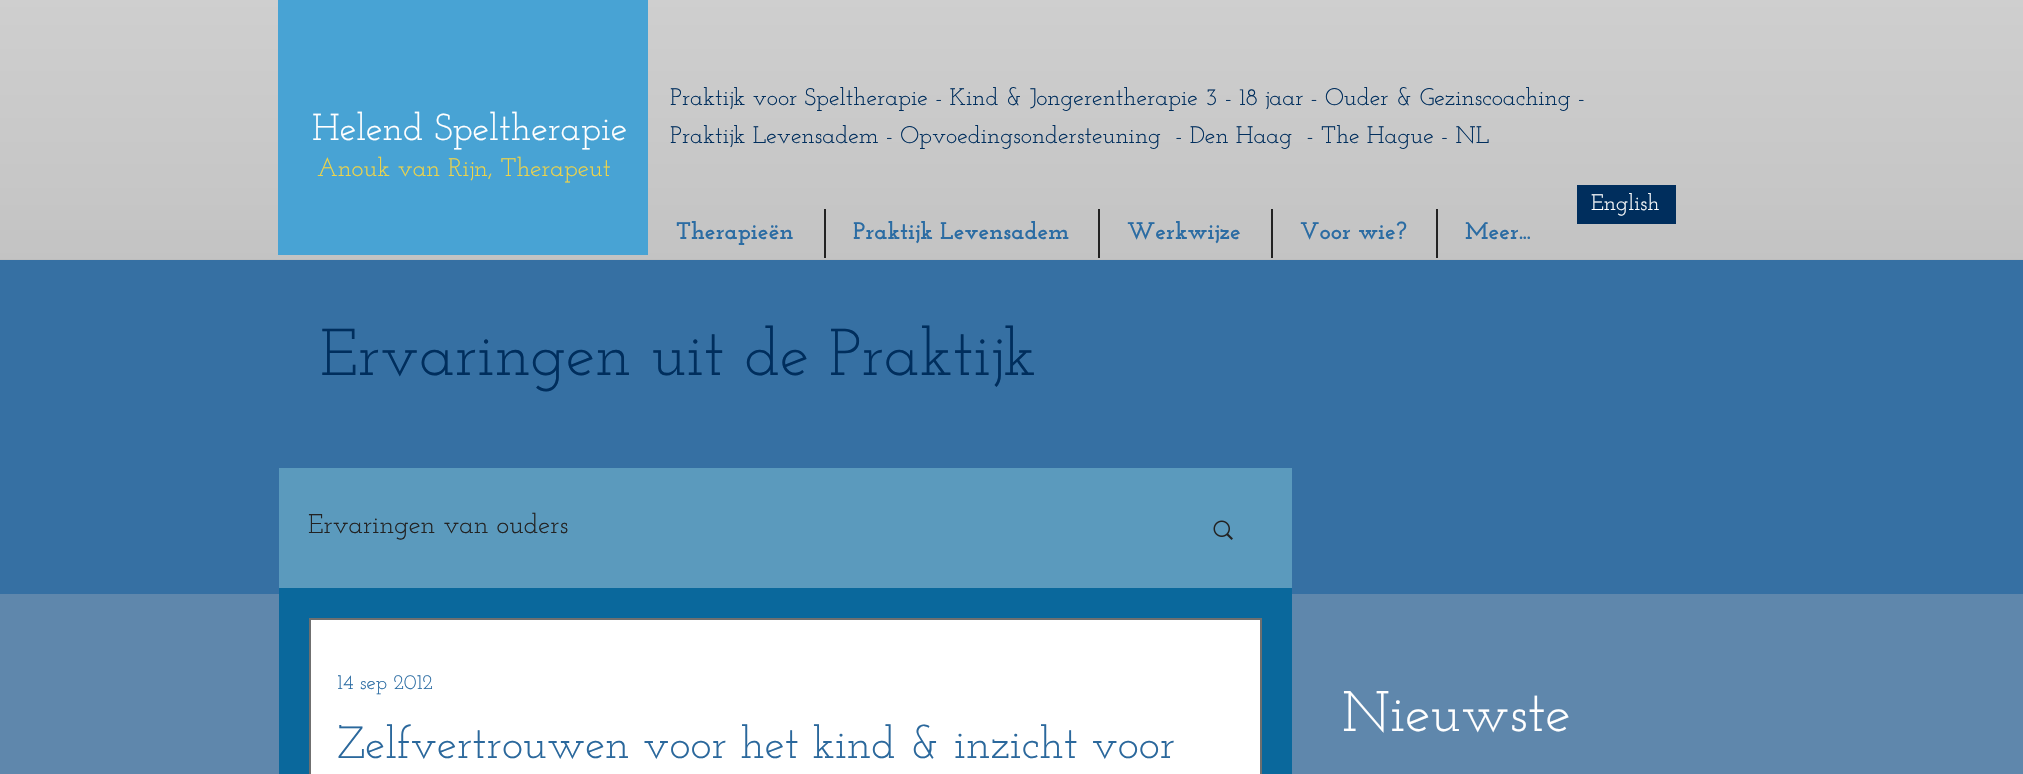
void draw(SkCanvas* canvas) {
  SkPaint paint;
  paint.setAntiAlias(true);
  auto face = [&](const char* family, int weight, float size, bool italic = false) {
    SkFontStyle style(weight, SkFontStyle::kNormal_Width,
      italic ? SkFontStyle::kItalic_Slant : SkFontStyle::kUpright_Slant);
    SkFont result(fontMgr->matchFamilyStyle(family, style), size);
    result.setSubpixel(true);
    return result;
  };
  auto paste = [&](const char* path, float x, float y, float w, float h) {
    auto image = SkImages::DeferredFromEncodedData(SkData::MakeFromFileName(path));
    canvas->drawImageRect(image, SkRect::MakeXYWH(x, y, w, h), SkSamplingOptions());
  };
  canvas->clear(0xffbebebe);
  paste("img/1.png", 0, 0, 2023, 259);
  {
    const struct { float x, y, w, h; SkColor color; } items[] = {
      {278, 0, 370, 255, 0xff48a3d4},
      {1577, 185, 99, 39, 0xff002e5d},
      {824, 209, 2, 49, 0xff222222},
      {1098, 209, 2, 49, 0xff222222},
      {1271, 209, 2, 49, 0xff222222},
      {1436, 209, 2, 49, 0xff222222},
      {0, 260, 2023, 334, 0xff3670a3},
      {0, 594, 2023, 180, 0xff5f87ac},
      {279, 588, 1013, 186, 0xff0a689c},
      {279, 468, 1013, 120, 0xff5b9abd},
    };
    for (auto [x, y, w, h, color] : items) {
      paint.setColor(color);
      canvas->drawRect(SkRect::MakeXYWH(x, y, w, h), paint);
    }
  }
  paste("img/2.png", 1213, 520, 20, 20);
  paint.setColor(0xffffffff);
  canvas->drawRect(SkRect::MakeXYWH(310, 619, 951, 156), paint);
  paint.setStroke(true);
  paint.setStrokeWidth(2);
  paint.setColor(0xff6f6f6f);
  canvas->drawRect(SkRect::MakeXYWH(310, 619, 951, 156), paint);
  auto f0 = face("Josefin Slab", 400, 37.5f);
  paint.setStroke(false);
  paint.setColor(0xffffffff);
  canvas->drawString("Helend Speltherapie", 312, 140, f0, paint);
  auto f1 = face("Josefin Slab", 400, 25.5f);
  paint.setColor(0xfff0d448);
  canvas->drawString("Anouk van Rijn, Therapeut", 317, 176, f1, paint);
  auto f2 = face("Josefin Slab", 400, 24);
  paint.setColor(0xff002e5d);
  canvas->drawString("Praktijk voor Speltherapie - Kind & Jongerentherapie 3 - 18 jaar - Ouder & Gezinscoaching -", 670, 105, f2, paint);
  canvas->drawString("Praktijk Levensadem - Opvoedingsondersteuning  - Den Haag  - The Hague - NL", 670, 143, f2, paint);
  auto f3 = face("Josefin Slab", 400, 22.5f);
  paint.setColor(0xffffffff);
  canvas->drawString("English", 1591, 210, f3, paint);
  auto f4 = face("Josefin Slab", 700, 24);
  paint.setColor(0xff2b6ca3);
  {
    const struct { const char* s; float x, y; } items[] = {
      {"Therapieën", 676, 239},
      {"Praktijk Levensadem", 853, 239},
      {"Werkwijze", 1127, 239},
      {"Voor wie?", 1300, 239},
      {"Meer...", 1465, 239},
    };
    for (auto [s, x, y] : items) {
      canvas->drawString(s, x, y, f4, paint);
    }
  }
  auto f5 = face("Josefin Slab", 400, 66);
  paint.setColor(0xff002e5d);
  canvas->drawString("Ervaringen uit de Praktijk", 320, 375, f5, paint);
  auto f6 = face("Josefin Slab", 400, 27);
  paint.setColor(0xff222222);
  canvas->drawString("Ervaringen van ouders", 308, 533, f6, paint);
  canvas->save();
  canvas->clipRect(SkRect::MakeXYWH(338, 668, 94, 31));
  auto f7 = face("Josefin Slab", 400, 21);
  paint.setColor(0xff2b6ca3);
  canvas->drawString("14 sep 2012", 337, 689, f7, paint);
  canvas->restore();
  auto f8 = face("Josefin Slab", 400, 45);
  paint.setColor(0xff2b689c);
  canvas->drawString("Zelfvertrouwen voor het kind & inzicht voor", 337, 758, f8, paint);
  auto f9 = face("Josefin Slab", 400, 57);
  paint.setColor(0xffffffff);
  canvas->drawString("Nieuwste", 1342, 731, f9, paint);
}
